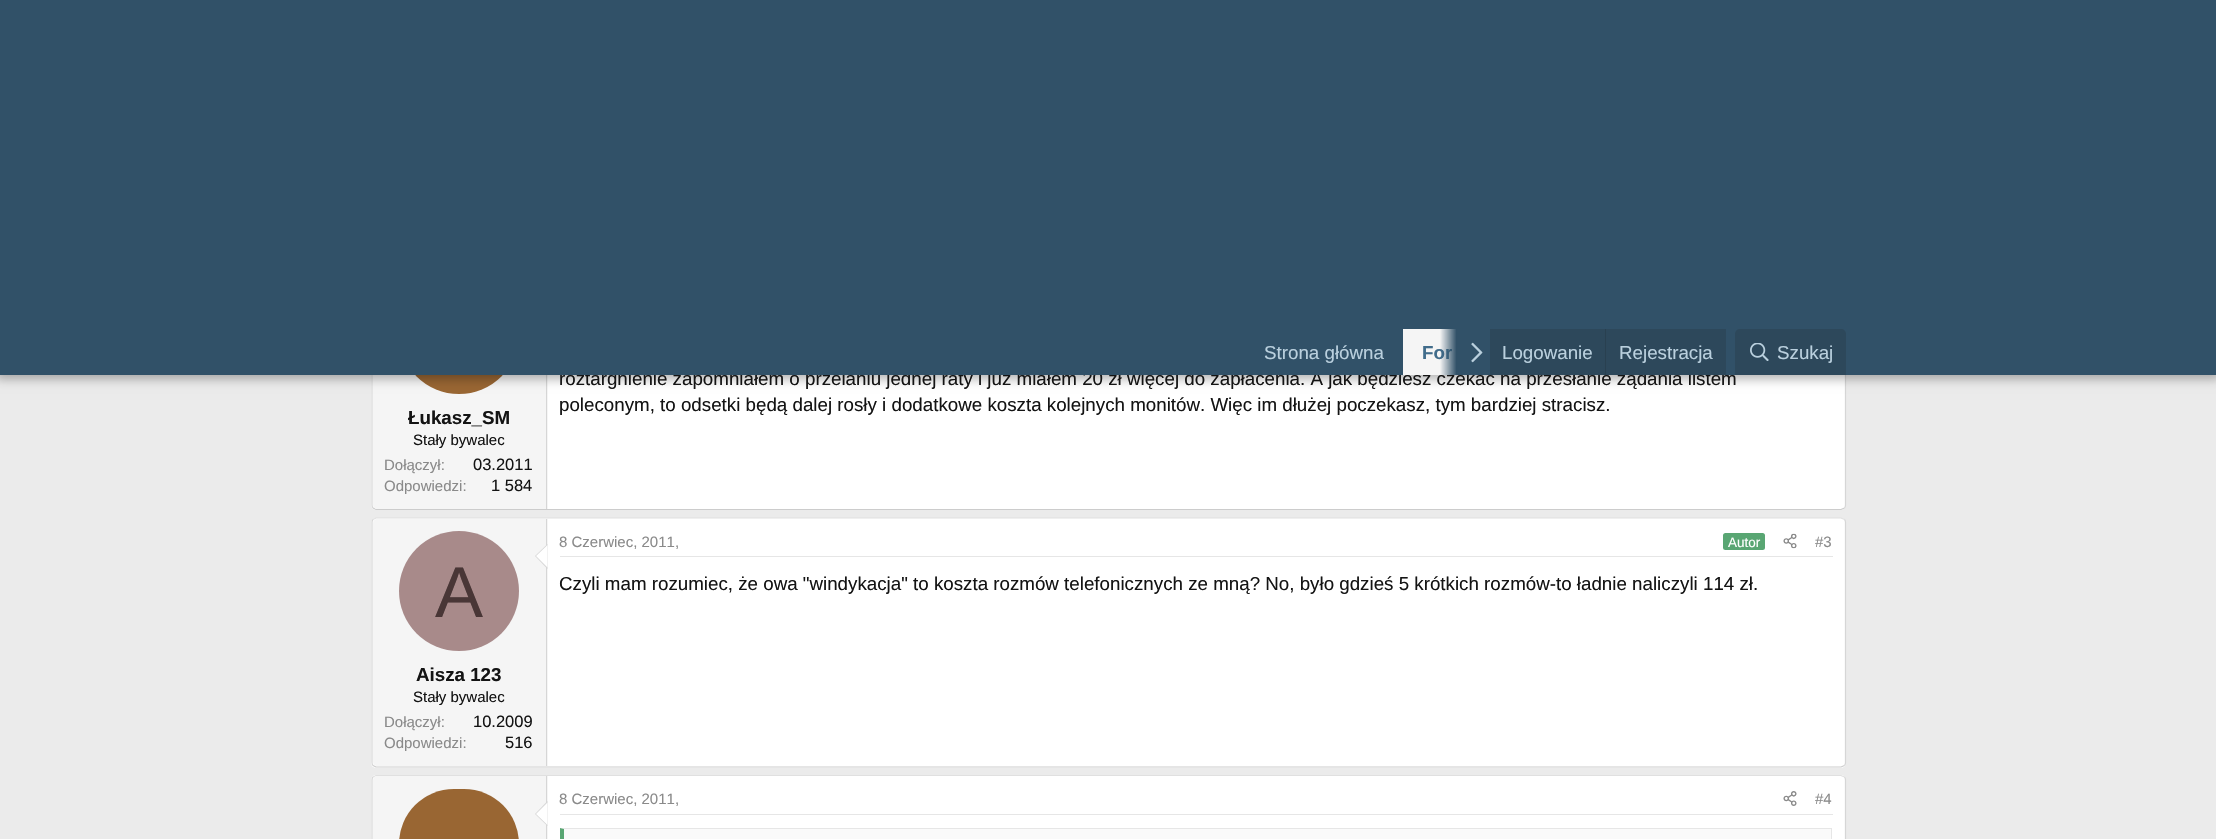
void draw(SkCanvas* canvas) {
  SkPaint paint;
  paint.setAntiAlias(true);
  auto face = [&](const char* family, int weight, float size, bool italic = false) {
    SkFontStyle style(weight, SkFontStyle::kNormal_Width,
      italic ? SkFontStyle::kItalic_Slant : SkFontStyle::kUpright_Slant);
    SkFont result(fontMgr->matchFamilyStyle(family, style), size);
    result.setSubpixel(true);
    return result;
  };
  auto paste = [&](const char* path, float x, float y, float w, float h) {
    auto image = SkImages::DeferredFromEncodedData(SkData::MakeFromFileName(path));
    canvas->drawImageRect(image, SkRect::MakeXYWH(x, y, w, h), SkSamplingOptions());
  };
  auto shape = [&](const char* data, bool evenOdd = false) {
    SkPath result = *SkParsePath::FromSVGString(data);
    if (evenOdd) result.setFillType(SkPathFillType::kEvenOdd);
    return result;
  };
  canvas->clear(0xffebebeb);
  paint.setColor(0xffffffff);
  canvas->drawRoundRect(SkRect::MakeXYWH(371, 260, 1475, 250), 5, 5, paint);
  paint.setStroke(true);
  paint.setStrokeWidth(1.2f);
  paint.setColor(0xffd6d6d6);
  canvas->drawPath(shape("M1844.5 262C1845 262.5 1845.5 264 1845.5 265V505C1845.5 506 1845 507.5 1844.5 508"), paint);
  paint.setColor(0xffcccccc);
  canvas->drawPath(shape("M1844.5 508L1841 509.5H376L373 508"), paint);
  paint.setColor(0xffd6d6d6);
  canvas->drawPath(shape("M373 508C372.5 507.5 372 506 372 505V265C372 264 372.5 262.5 373 262"), paint);
  paint.setStroke(false);
  paint.setColor(0xfff5f5f5);
  canvas->drawPath(shape("M377 261H548V509H377C375 509 373 507 373 505V265C373 263 375 261 377 261Z"), paint);
  paint.setColor(0xffd6d6d6);
  canvas->drawRect(SkRect::MakeXYWH(546, 375, 1, 134), paint);
  paint.setColor(0xff996633);
  canvas->drawCircle(459, 334, 60, paint);
  paint.setColor(0x4d000000);
  paint.setMaskFilter(SkMaskFilter::MakeBlur(kNormal_SkBlurStyle, 5));
  canvas->drawRect(SkRect::MakeXYWH(-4, -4, 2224, 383), paint);
  paint.setMaskFilter(nullptr);
  paint.setColor(0xffffffff);
  canvas->drawRoundRect(SkRect::MakeXYWH(371, 518, 1475, 250), 5, 5, paint);
  paint.setStroke(true);
  paint.setColor(0xffe0e0e0);
  canvas->drawPath(shape("M373 519.5L376 518H1841L1844.5 519.5"), paint);
  paint.setColor(0xffd6d6d6);
  canvas->drawPath(shape("M1844.5 519.5C1845 520 1845.5 521.5 1845.5 522.5V762.5C1845.5 763.5 1845 765 1844.5 765.5"), paint);
  paint.setColor(0xffcccccc);
  canvas->drawPath(shape("M1844.5 765.5L1841 767H376L373 765.5"), paint);
  paint.setColor(0xffd6d6d6);
  canvas->drawPath(shape("M373 765.5C372.5 765 372 763.5 372 762.5V522.5C372 521.5 372.5 520 373 519.5"), paint);
  paint.setStroke(false);
  paint.setColor(0xfff5f5f5);
  canvas->drawPath(shape("M377 519H548V766H377C375 766 373 764 373 762V523C373 521 375 519 377 519Z"), paint);
  paint.setColor(0xffd6d6d6);
  canvas->drawRect(SkRect::MakeXYWH(546, 519, 1, 247), paint);
  canvas->drawPath(shape("M547.5 544V569L535 556Z"), paint);
  paint.setColor(0xffffffff);
  canvas->drawPath(shape("M547.5 545V567.5L536 556Z"), paint);
  paint.setColor(0xffa88a8a);
  canvas->drawCircle(459, 591, 60, paint);
  paint.setColor(0xffe6e6e6);
  canvas->drawRect(SkRect::MakeXYWH(560, 556, 1273, 1), paint);
  paint.setColor(0xff59a673);
  canvas->drawRoundRect(SkRect::MakeXYWH(1723, 533, 42, 17), 2.5f, 2.5f, paint);
  paste("img/3.png", 1783, 533, 14, 16);
  paint.setColor(0xffffffff);
  canvas->drawRoundRect(SkRect::MakeXYWH(371, 775, 1475, 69), 5, 5, paint);
  paint.setStroke(true);
  paint.setColor(0xffe0e0e0);
  canvas->drawPath(shape("M373 777L376 775.5H1841L1844.5 777"), paint);
  paint.setColor(0xffd6d6d6);
  canvas->drawPath(shape("M1844.5 777C1845 777.5 1845.5 779 1845.5 780V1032.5C1845.5 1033.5 1845 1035 1844.5 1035.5"), paint);
  canvas->drawPath(shape("M373 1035.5C372.5 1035 372 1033.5 372 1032.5V780C372 779 372.5 777.5 373 777"), paint);
  paint.setStroke(false);
  paint.setColor(0xfff5f5f5);
  canvas->drawPath(shape("M377 776H548V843H377C375 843 373 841 373 839V780C373 778 375 776 377 776Z"), paint);
  paint.setColor(0xffd6d6d6);
  canvas->drawRect(SkRect::MakeXYWH(546, 776, 1, 63), paint);
  paint.setColor(0xff996633);
  canvas->drawRoundRect(SkRect::MakeXYWH(399, 789, 120, 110), 60, 60, paint);
  paint.setColor(0xffd6d6d6);
  canvas->drawPath(shape("M547.5 801V826L535 814Z"), paint);
  paint.setColor(0xffffffff);
  canvas->drawPath(shape("M547.5 802.5V825L536 814Z"), paint);
  paint.setColor(0xffe6e6e6);
  canvas->drawRect(SkRect::MakeXYWH(560, 814, 1273, 1), paint);
  paste("img/4.png", 1783, 791, 14, 15);
  canvas->drawPath(shape("M560 828H1832L1831 829H564Z"), paint);
  canvas->drawRect(SkRect::MakeXYWH(1831, 828, 1, 11), paint);
  paint.setColor(0xff59a673);
  canvas->drawPath(shape("M560 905V828L564 829V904Z"), paint);
  paint.setColor(0xfffafafa);
  canvas->drawRect(SkRect::MakeXYWH(564, 829, 1267, 10), paint);
  auto f0 = face("Liberation Sans", 400, 18.75f);
  paint.setColor(0xff141414);
  canvas->drawString("roztargnienie zapomniałem o przelaniu jednej raty i już miałem 20 zł więcej do zapłacenia. A jak będziesz czekać na przesłanie żądania listem", 559, 385, f0, paint);
  paint.setColor(0xff315168);
  canvas->drawRect(SkRect::MakeXYWH(0, 0, 2216, 375), paint);
  paint.setColor(0xff2d485b);
  canvas->drawPath(shape("M1740 329H1841C1844 329 1846 331 1846 334V375H1735V334C1735 331 1737 329 1740 329Z"), paint);
  paste("img/2.png", 1750, 343, 19, 18);
  paste("img/1.png", 1471, 342, 12, 21);
  paint.setColor(0xfff5f5f5);
  canvas->drawRect(SkRect::MakeXYWH(1403, 329, 53, 46), paint);
  auto f1 = face("Liberation Sans", 700, 18.75f);
  paint.setColor(0xff416c8b);
  canvas->drawString("For", 1422, 359, f1, paint);
  {
    const SkColor colors[] = {0x00315168, 0xff315168};
    const float stops[] = {0, 0.33f};
    const SkPoint ends[] = {{1440, 352}, {1490, 352}};
    paint.setShader(SkGradientShader::MakeLinear(ends, colors, stops, 2, SkTileMode::kClamp));
    paint.setAlpha(255);
  }
  canvas->drawRect(SkRect::MakeXYWH(1440, 329, 16, 46), paint);
  paint.setShader(nullptr);
  paint.setColor(0xffbad0de);
  canvas->drawString("Strona główna", 1264, 359, f0, paint);
  canvas->drawString("Szukaj", 1777, 359, f0, paint);
  paint.setColor(0xff2d485b);
  canvas->drawRect(SkRect::MakeXYWH(1490, 329, 236, 46), paint);
  paint.setColor(0xffbad0de);
  canvas->drawString("Rejestracja", 1619, 359, f0, paint);
  paint.setColor(0xff294050);
  canvas->drawRect(SkRect::MakeXYWH(1605, 329, 1, 46), paint);
  paint.setColor(0xffbad0de);
  canvas->drawString("Logowanie", 1502, 359, f0, paint);
  paint.setColor(0xff141414);
  canvas->drawString("poleconym, to odsetki będą dalej rosły i dodatkowe koszta kolejnych monitów. Więc im dłużej poczekasz, tym bardziej stracisz.", 559, 411, f0, paint);
  canvas->drawString("Łukasz_SM", 408, 424, f1, paint);
  auto f2 = face("Liberation Sans", 400, 15);
  canvas->drawString("Stały bywalec", 413, 445, f2, paint);
  paint.setColor(0xff8a8a8a);
  canvas->drawString("Dołączył:", 384, 470, f2, paint);
  auto f3 = face("Liberation Sans", 400, 16.5f);
  paint.setColor(0xff141414);
  canvas->drawString("03.2011", 473, 470, f3, paint);
  paint.setColor(0xff8a8a8a);
  canvas->drawString("Odpowiedzi:", 384, 491, f2, paint);
  paint.setColor(0xff141414);
  canvas->drawString("1 584", 491, 491, f3, paint);
  auto f4 = face("Liberation Sans", 400, 72);
  paint.setColor(0xff493636);
  canvas->drawString("A", 435, 617, f4, paint);
  paint.setColor(0xff141414);
  canvas->drawString("Aisza 123", 416, 681, f1, paint);
  canvas->drawString("Stały bywalec", 413, 702, f2, paint);
  paint.setColor(0xff8a8a8a);
  canvas->drawString("Dołączył:", 384, 727, f2, paint);
  paint.setColor(0xff141414);
  canvas->drawString("10.2009", 473, 727, f3, paint);
  paint.setColor(0xff8a8a8a);
  canvas->drawString("Odpowiedzi:", 384, 748, f2, paint);
  paint.setColor(0xff141414);
  canvas->drawString("516", 505, 748, f3, paint);
  paint.setColor(0xff8a8a8a);
  canvas->drawString("8 Czerwiec, 2011,", 559, 547, f2, paint);
  auto f5 = face("Liberation Sans", 400, 13.5f);
  paint.setColor(0xffffffff);
  canvas->drawString("Autor", 1728, 547, f5, paint);
  paint.setColor(0xff8a8a8a);
  canvas->drawString("#3", 1815, 547, f2, paint);
  paint.setColor(0xff141414);
  canvas->drawString("Czyli mam rozumiec, że owa \"windykacja\" to koszta rozmów telefonicznych ze mną? No, było gdzieś 5 krótkich rozmów-to ładnie naliczyli 114 zł.", 559, 590, f0, paint);
  paint.setColor(0xff8a8a8a);
  canvas->drawString("8 Czerwiec, 2011,", 559, 804, f2, paint);
  canvas->drawString("#4", 1815, 804, f2, paint);
}
